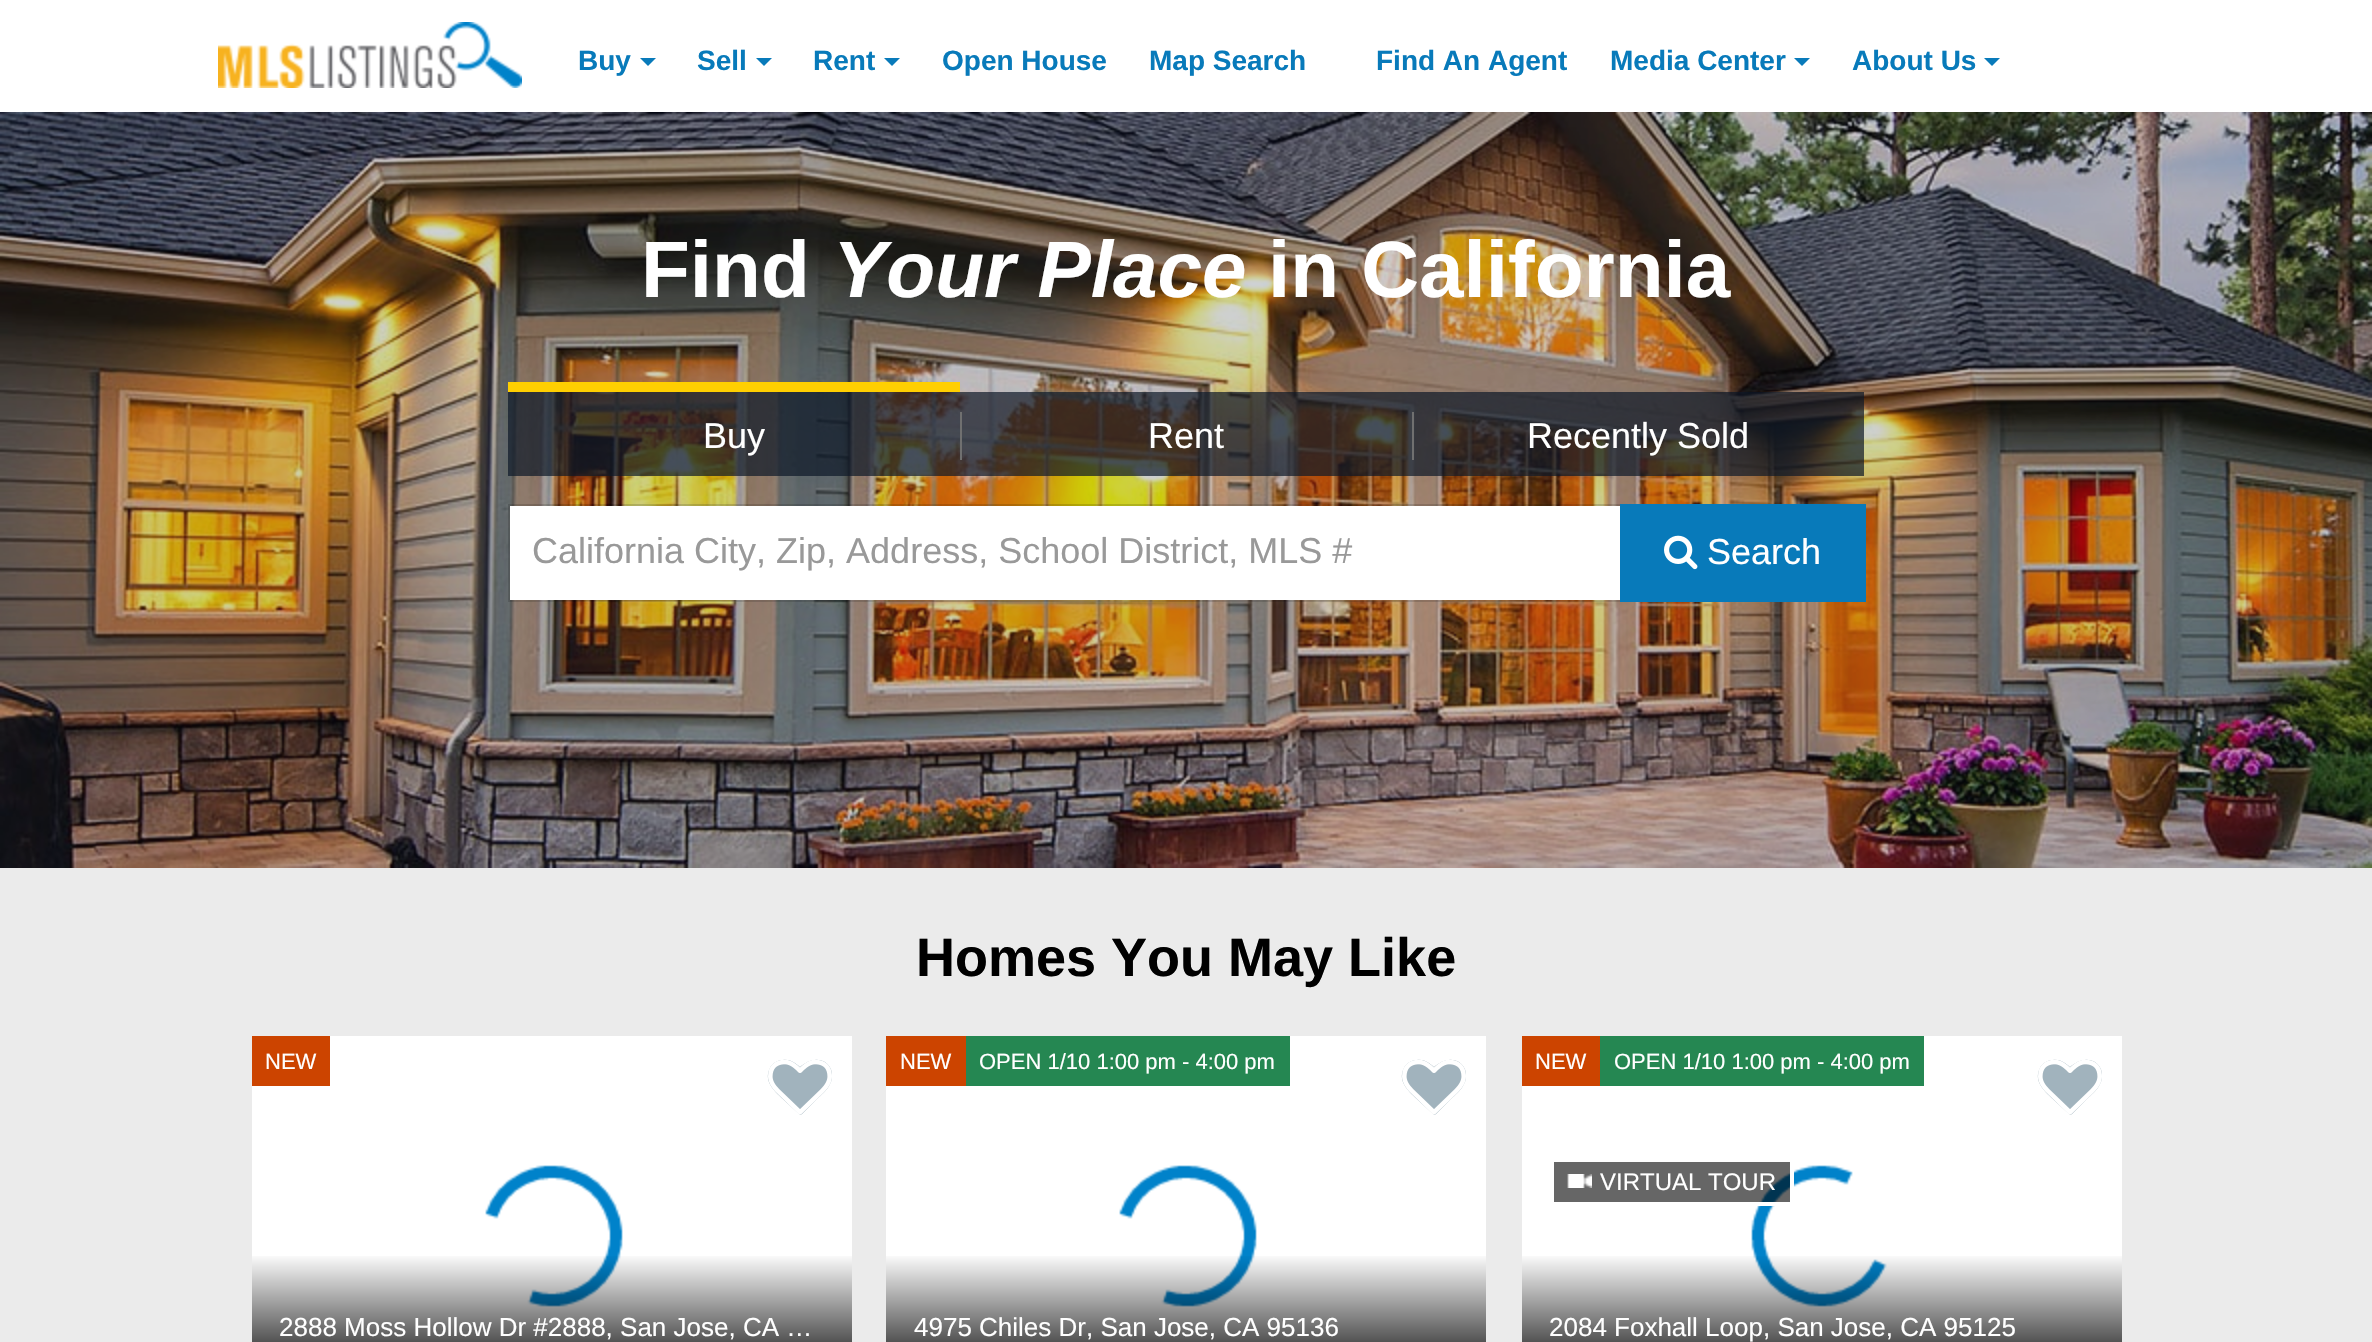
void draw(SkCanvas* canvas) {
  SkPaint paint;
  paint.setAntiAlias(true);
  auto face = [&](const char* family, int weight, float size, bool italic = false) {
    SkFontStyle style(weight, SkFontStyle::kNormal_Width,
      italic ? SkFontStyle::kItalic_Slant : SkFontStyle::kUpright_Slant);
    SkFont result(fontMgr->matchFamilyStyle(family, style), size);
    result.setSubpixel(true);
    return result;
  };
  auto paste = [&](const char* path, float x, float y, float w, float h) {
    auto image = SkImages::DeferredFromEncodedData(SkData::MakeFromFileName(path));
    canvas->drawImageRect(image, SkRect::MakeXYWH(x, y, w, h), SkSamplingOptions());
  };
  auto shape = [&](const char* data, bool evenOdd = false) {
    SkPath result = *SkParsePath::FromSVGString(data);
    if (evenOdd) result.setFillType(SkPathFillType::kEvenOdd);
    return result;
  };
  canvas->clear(0xffffffff);
  paste("img/1.png", 218, 22, 304, 66);
  paint.setColor(0xff087aba);
  canvas->drawPath(shape("M640 58H656L648 66Z"), paint);
  canvas->drawPath(shape("M756 58H772L764 66Z"), paint);
  canvas->drawPath(shape("M884 58H900L892 66Z"), paint);
  canvas->drawPath(shape("M1794 58H1810L1802 66Z"), paint);
  canvas->drawPath(shape("M1984 58H2000L1992 66Z"), paint);
  paste("img/2.png", 0, 112, 2372, 756);
  {
    const struct { float x, y, w, h; SkColor color; } items[] = {
      {508, 392, 452, 84, 0xb30c1726},
      {508, 382, 452, 10, 0xffffcf01},
      {960, 392, 452, 84, 0xb30c1726},
      {960, 412, 2, 48, 0xff707070},
      {1412, 392, 452, 84, 0xb30c1726},
      {1412, 412, 2, 48, 0xff707070},
      {510, 506, 1110, 94, 0xffffffff},
    };
    for (auto [x, y, w, h, color] : items) {
      paint.setColor(color);
      canvas->drawRect(SkRect::MakeXYWH(x, y, w, h), paint);
    }
  }
  paint.setStroke(true);
  paint.setStrokeWidth(2);
  paint.setColor(0x26000000);
  canvas->drawRect(SkRect::MakeXYWH(509, 505, 1112, 96), paint);
  paint.setStroke(false);
  paint.setColor(0xff087aba);
  canvas->drawRect(SkRect::MakeXYWH(1620, 504, 246, 98), paint);
  paste("img/3.png", 1664, 535, 34, 35);
  {
    const struct { float x, y, w, h; SkColor color; } items[] = {
      {0, 868, 2372, 474, 0xffebebeb},
      {252, 1036, 600, 306, 0xffffffff},
      {252, 1036, 78, 50, 0xffcc4400},
    };
    for (auto [x, y, w, h, color] : items) {
      paint.setColor(color);
      canvas->drawRect(SkRect::MakeXYWH(x, y, w, h), paint);
    }
  }
  paste("img/4.png", 485, 1165, 138, 142);
  {
    const SkColor colors[] = {0x00000000, 0xb3000000};
    const float stops[] = {0.13f, 0.57f};
    const SkPoint ends[] = {{552, 1226}, {552, 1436}};
    paint.setShader(SkGradientShader::MakeLinear(ends, colors, stops, 2, SkTileMode::kClamp));
    paint.setAlpha(255);
  }
  canvas->drawRect(SkRect::MakeXYWH(252, 1256, 600, 86), paint);
  paint.setShader(nullptr);
  paint.setColor(0xffa1b3bd);
  canvas->drawPath(shape("M802 1114C801 1115 800 1115 799 1114L787 1103C778 1094 762 1083 770 1068C772 1063 778 1060 783 1060C790 1059 795 1063 800 1067C807 1061 816 1057 825 1062C829 1065 831 1068 832 1073C832 1077 832 1081 830 1084C827 1091 821 1095 816 1100Z"), paint);
  paste("img/5.png", 768, 1059, 64, 56);
  {
    const struct { float x, y, w, h; SkColor color; } items[] = {
      {886, 1036, 600, 306, 0xffffffff},
      {886, 1036, 80, 50, 0xffcc4400},
      {966, 1036, 324, 50, 0xff258752},
    };
    for (auto [x, y, w, h, color] : items) {
      paint.setColor(color);
      canvas->drawRect(SkRect::MakeXYWH(x, y, w, h), paint);
    }
  }
  paste("img/4.png", 1119, 1165, 138, 142);
  {
    const SkColor colors[] = {0x00000000, 0xb3000000};
    const float stops[] = {0.13f, 0.57f};
    const SkPoint ends[] = {{1186, 1226}, {1186, 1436}};
    paint.setShader(SkGradientShader::MakeLinear(ends, colors, stops, 2, SkTileMode::kClamp));
    paint.setAlpha(255);
  }
  canvas->drawRect(SkRect::MakeXYWH(886, 1256, 600, 86), paint);
  paint.setShader(nullptr);
  paint.setColor(0xffa1b3bd);
  canvas->drawPath(shape("M1436 1114C1435 1115 1434 1115 1433 1114L1421 1103C1412 1094 1396 1083 1404 1068C1406 1063 1412 1060 1417 1060C1424 1059 1429 1063 1434 1067C1441 1061 1450 1057 1459 1062C1463 1065 1465 1068 1466 1073C1466 1077 1466 1081 1464 1084C1461 1091 1455 1095 1450 1100Z"), paint);
  paste("img/5.png", 1402, 1059, 64, 56);
  {
    const struct { float x, y, w, h; SkColor color; } items[] = {
      {1522, 1036, 600, 306, 0xffffffff},
      {1522, 1036, 78, 50, 0xffcc4400},
      {1600, 1036, 324, 50, 0xff258752},
    };
    for (auto [x, y, w, h, color] : items) {
      paint.setColor(color);
      canvas->drawRect(SkRect::MakeXYWH(x, y, w, h), paint);
    }
  }
  paste("img/6.png", 1751, 1165, 136, 142);
  paint.setColor(0x99000000);
  canvas->drawRect(SkRect::MakeXYWH(1552, 1160, 240, 44), paint);
  paint.setStroke(true);
  paint.setStrokeWidth(4);
  paint.setColor(0xffffffff);
  canvas->drawRect(SkRect::MakeXYWH(1552, 1160, 240, 44), paint);
  paste("img/7.png", 1567, 1174, 25, 14);
  paint.setStroke(false);
  {
    const SkColor colors[] = {0x00000000, 0xb3000000};
    const float stops[] = {0.13f, 0.57f};
    const SkPoint ends[] = {{1822, 1226}, {1822, 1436}};
    paint.setShader(SkGradientShader::MakeLinear(ends, colors, stops, 2, SkTileMode::kClamp));
    paint.setAlpha(255);
  }
  canvas->drawRect(SkRect::MakeXYWH(1522, 1256, 600, 86), paint);
  paint.setShader(nullptr);
  paint.setColor(0xffa1b3bd);
  canvas->drawPath(shape("M2072 1114C2071 1115 2070 1115 2069 1114L2057 1103C2048 1094 2032 1083 2040 1068C2042 1063 2048 1060 2053 1060C2060 1059 2065 1063 2070 1067C2077 1061 2086 1057 2095 1062C2099 1065 2101 1068 2102 1073C2102 1077 2102 1081 2100 1084C2097 1091 2091 1095 2086 1100Z"), paint);
  paste("img/5.png", 2038, 1059, 64, 56);
  auto f0 = face("Liberation Sans", 700, 28);
  paint.setColor(0xff087aba);
  {
    const struct { const char* s; float x, y; } items[] = {
      {"Buy", 578, 70},
      {"Sell", 697, 70},
      {"Rent", 813, 70},
      {"Open House", 942, 70},
      {"Map Search", 1149, 70},
      {"Find An Agent", 1376, 70},
      {"Media Center", 1610, 70},
      {"About Us", 1852, 70},
    };
    for (auto [s, x, y] : items) {
      canvas->drawString(s, x, y, f0, paint);
    }
  }
  auto f1 = face("Liberation Sans", 700, 80);
  paint.setColor(0xffffffff);
  canvas->drawString("Find", 641, 297, f1, paint);
  auto f2 = face("Liberation Sans", 700, 80, true);
  canvas->drawString("Your Place", 833, 297, f2, paint);
  canvas->drawString("in California", 1268, 297, f1, paint);
  auto f3 = face("Liberation Sans", 400, 36);
  {
    const struct { const char* s; float x, y; } items[] = {
      {"Buy", 703, 448},
      {"Rent", 1148, 448},
      {"Recently Sold", 1527, 448},
    };
    for (auto [s, x, y] : items) {
      canvas->drawString(s, x, y, f3, paint);
    }
  }
  paint.setColor(0xff999999);
  canvas->drawString("California City, Zip, Address, School District, MLS #", 532, 563, f3, paint);
  paint.setColor(0xffffffff);
  canvas->drawString("Search", 1707, 564, f3, paint);
  auto f4 = face("Liberation Sans", 700, 54);
  paint.setColor(0xff000000);
  canvas->drawString("Homes You May Like", 916, 976, f4, paint);
  auto f5 = face("Liberation Sans", 400, 22);
  paint.setColor(0xffffffff);
  canvas->drawString("NEW", 265, 1069, f5, paint);
  auto f6 = face("Liberation Sans", 400, 26);
  canvas->drawString("2888 Moss Hollow Dr #2888, San Jose, CA …", 279, 1336, f6, paint);
  canvas->drawString("NEW", 900, 1069, f5, paint);
  canvas->drawString("OPEN 1/10 1:00 pm - 4:00 pm", 979, 1069, f5, paint);
  canvas->drawString("4975 Chiles Dr, San Jose, CA 95136", 914, 1336, f6, paint);
  canvas->drawString("NEW", 1535, 1069, f5, paint);
  canvas->drawString("OPEN 1/10 1:00 pm - 4:00 pm", 1614, 1069, f5, paint);
  auto f7 = face("Liberation Sans", 400, 24);
  canvas->drawString("VIRTUAL TOUR", 1600, 1190, f7, paint);
  canvas->drawString("2084 Foxhall Loop, San Jose, CA 95125", 1549, 1336, f6, paint);
}
